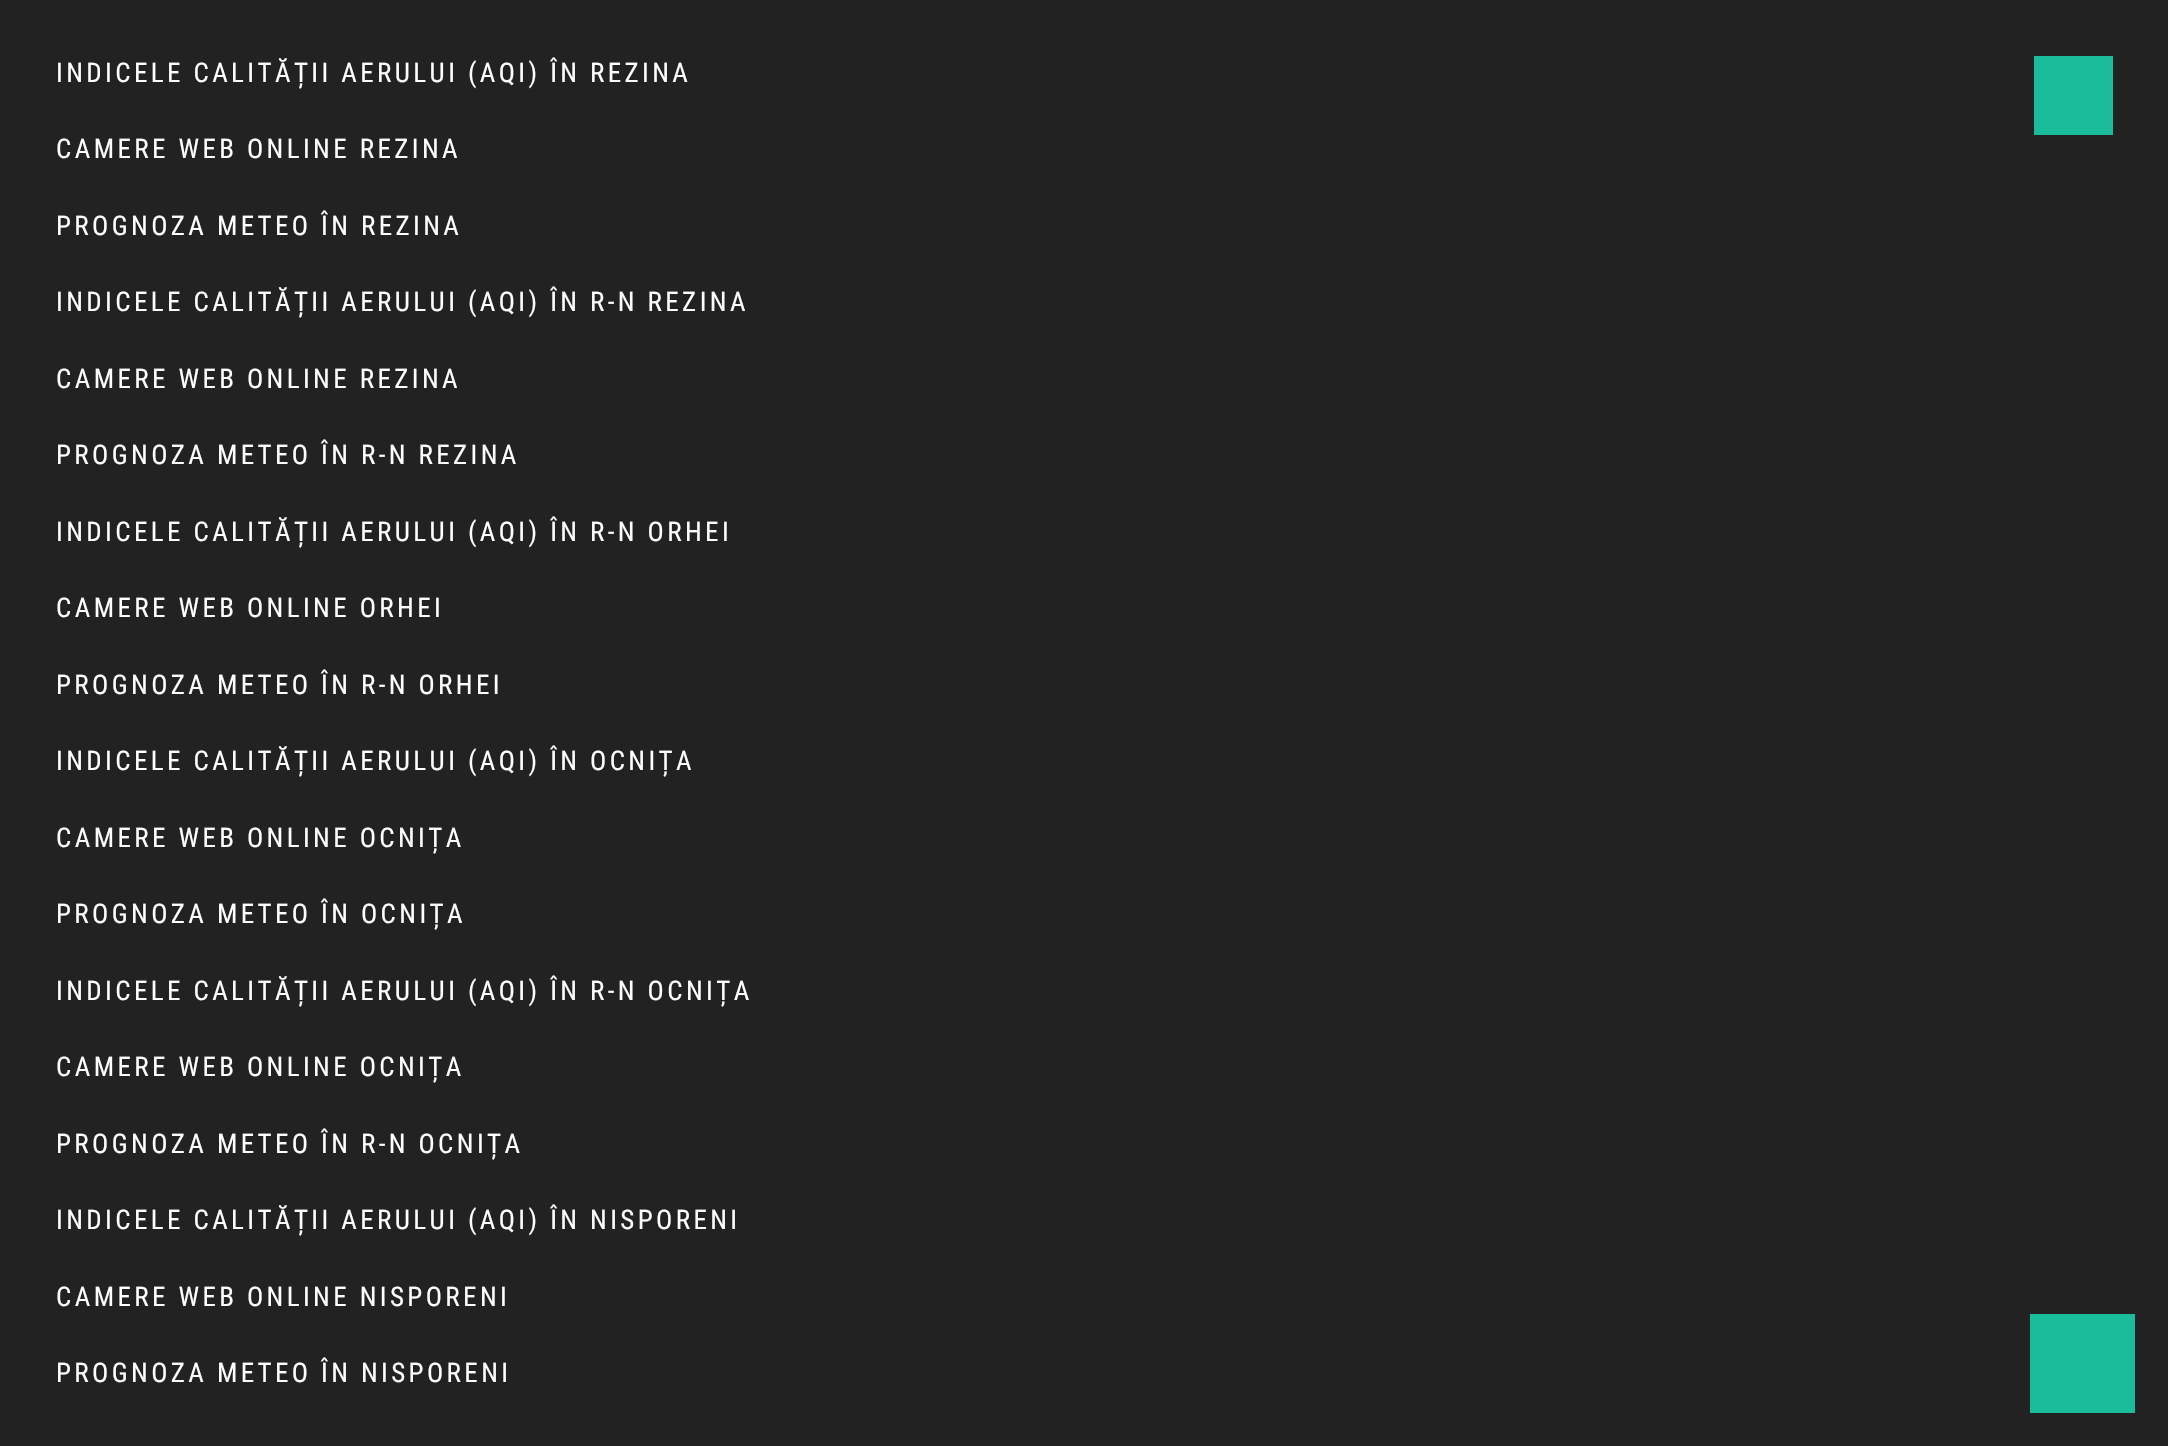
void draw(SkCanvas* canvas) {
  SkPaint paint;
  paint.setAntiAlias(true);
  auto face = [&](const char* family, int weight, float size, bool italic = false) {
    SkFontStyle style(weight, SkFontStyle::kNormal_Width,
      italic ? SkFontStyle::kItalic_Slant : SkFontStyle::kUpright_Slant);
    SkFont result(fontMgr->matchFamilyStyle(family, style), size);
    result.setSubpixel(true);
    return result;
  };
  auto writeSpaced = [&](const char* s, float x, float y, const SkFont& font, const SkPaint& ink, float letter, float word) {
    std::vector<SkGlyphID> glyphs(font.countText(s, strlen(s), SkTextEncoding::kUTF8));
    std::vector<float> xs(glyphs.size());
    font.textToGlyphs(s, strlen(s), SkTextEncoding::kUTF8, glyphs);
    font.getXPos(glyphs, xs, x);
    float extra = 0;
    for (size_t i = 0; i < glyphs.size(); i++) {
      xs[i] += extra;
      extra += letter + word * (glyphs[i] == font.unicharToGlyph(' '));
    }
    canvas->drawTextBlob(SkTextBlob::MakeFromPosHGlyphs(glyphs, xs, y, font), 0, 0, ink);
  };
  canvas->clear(0xff222222);
  paint.setColor(0xff1abc9c);
  canvas->drawRect(SkRect::MakeXYWH(2034, 56, 79, 79), paint);
  canvas->drawRect(SkRect::MakeXYWH(2030, 1314, 105, 99), paint);
  auto f0 = face("Roboto Condensed", 400, 27);
  paint.setColor(0xffffffff);
  {
    const struct { const char* s; float x, y; } items[] = {
      {"INDICELE CALITĂȚII AERULUI (AQI) ÎN REZINA", 56, 82},
      {"CAMERE WEB ONLINE REZINA", 56, 158},
      {"PROGNOZA METEO ÎN REZINA", 56, 235},
      {"INDICELE CALITĂȚII AERULUI (AQI) ÎN R-N REZINA", 56, 311},
      {"CAMERE WEB ONLINE REZINA", 56, 388},
      {"PROGNOZA METEO ÎN R-N REZINA", 56, 464},
      {"INDICELE CALITĂȚII AERULUI (AQI) ÎN R-N ORHEI", 56, 541},
      {"CAMERE WEB ONLINE ORHEI", 56, 617},
      {"PROGNOZA METEO ÎN R-N ORHEI", 56, 694},
      {"INDICELE CALITĂȚII AERULUI (AQI) ÎN OCNIȚA", 56, 770},
      {"CAMERE WEB ONLINE OCNIȚA", 56, 847},
      {"PROGNOZA METEO ÎN OCNIȚA", 56, 923},
      {"INDICELE CALITĂȚII AERULUI (AQI) ÎN R-N OCNIȚA", 56, 1000},
      {"CAMERE WEB ONLINE OCNIȚA", 56, 1076},
      {"PROGNOZA METEO ÎN R-N OCNIȚA", 56, 1153},
      {"INDICELE CALITĂȚII AERULUI (AQI) ÎN NISPORENI", 56, 1229},
      {"CAMERE WEB ONLINE NISPORENI", 56, 1306},
      {"PROGNOZA METEO ÎN NISPORENI", 56, 1382},
    };
    for (auto [s, x, y] : items) {
      writeSpaced(s, x, y, f0, paint, 3.4f, 0);
    }
  }
}
